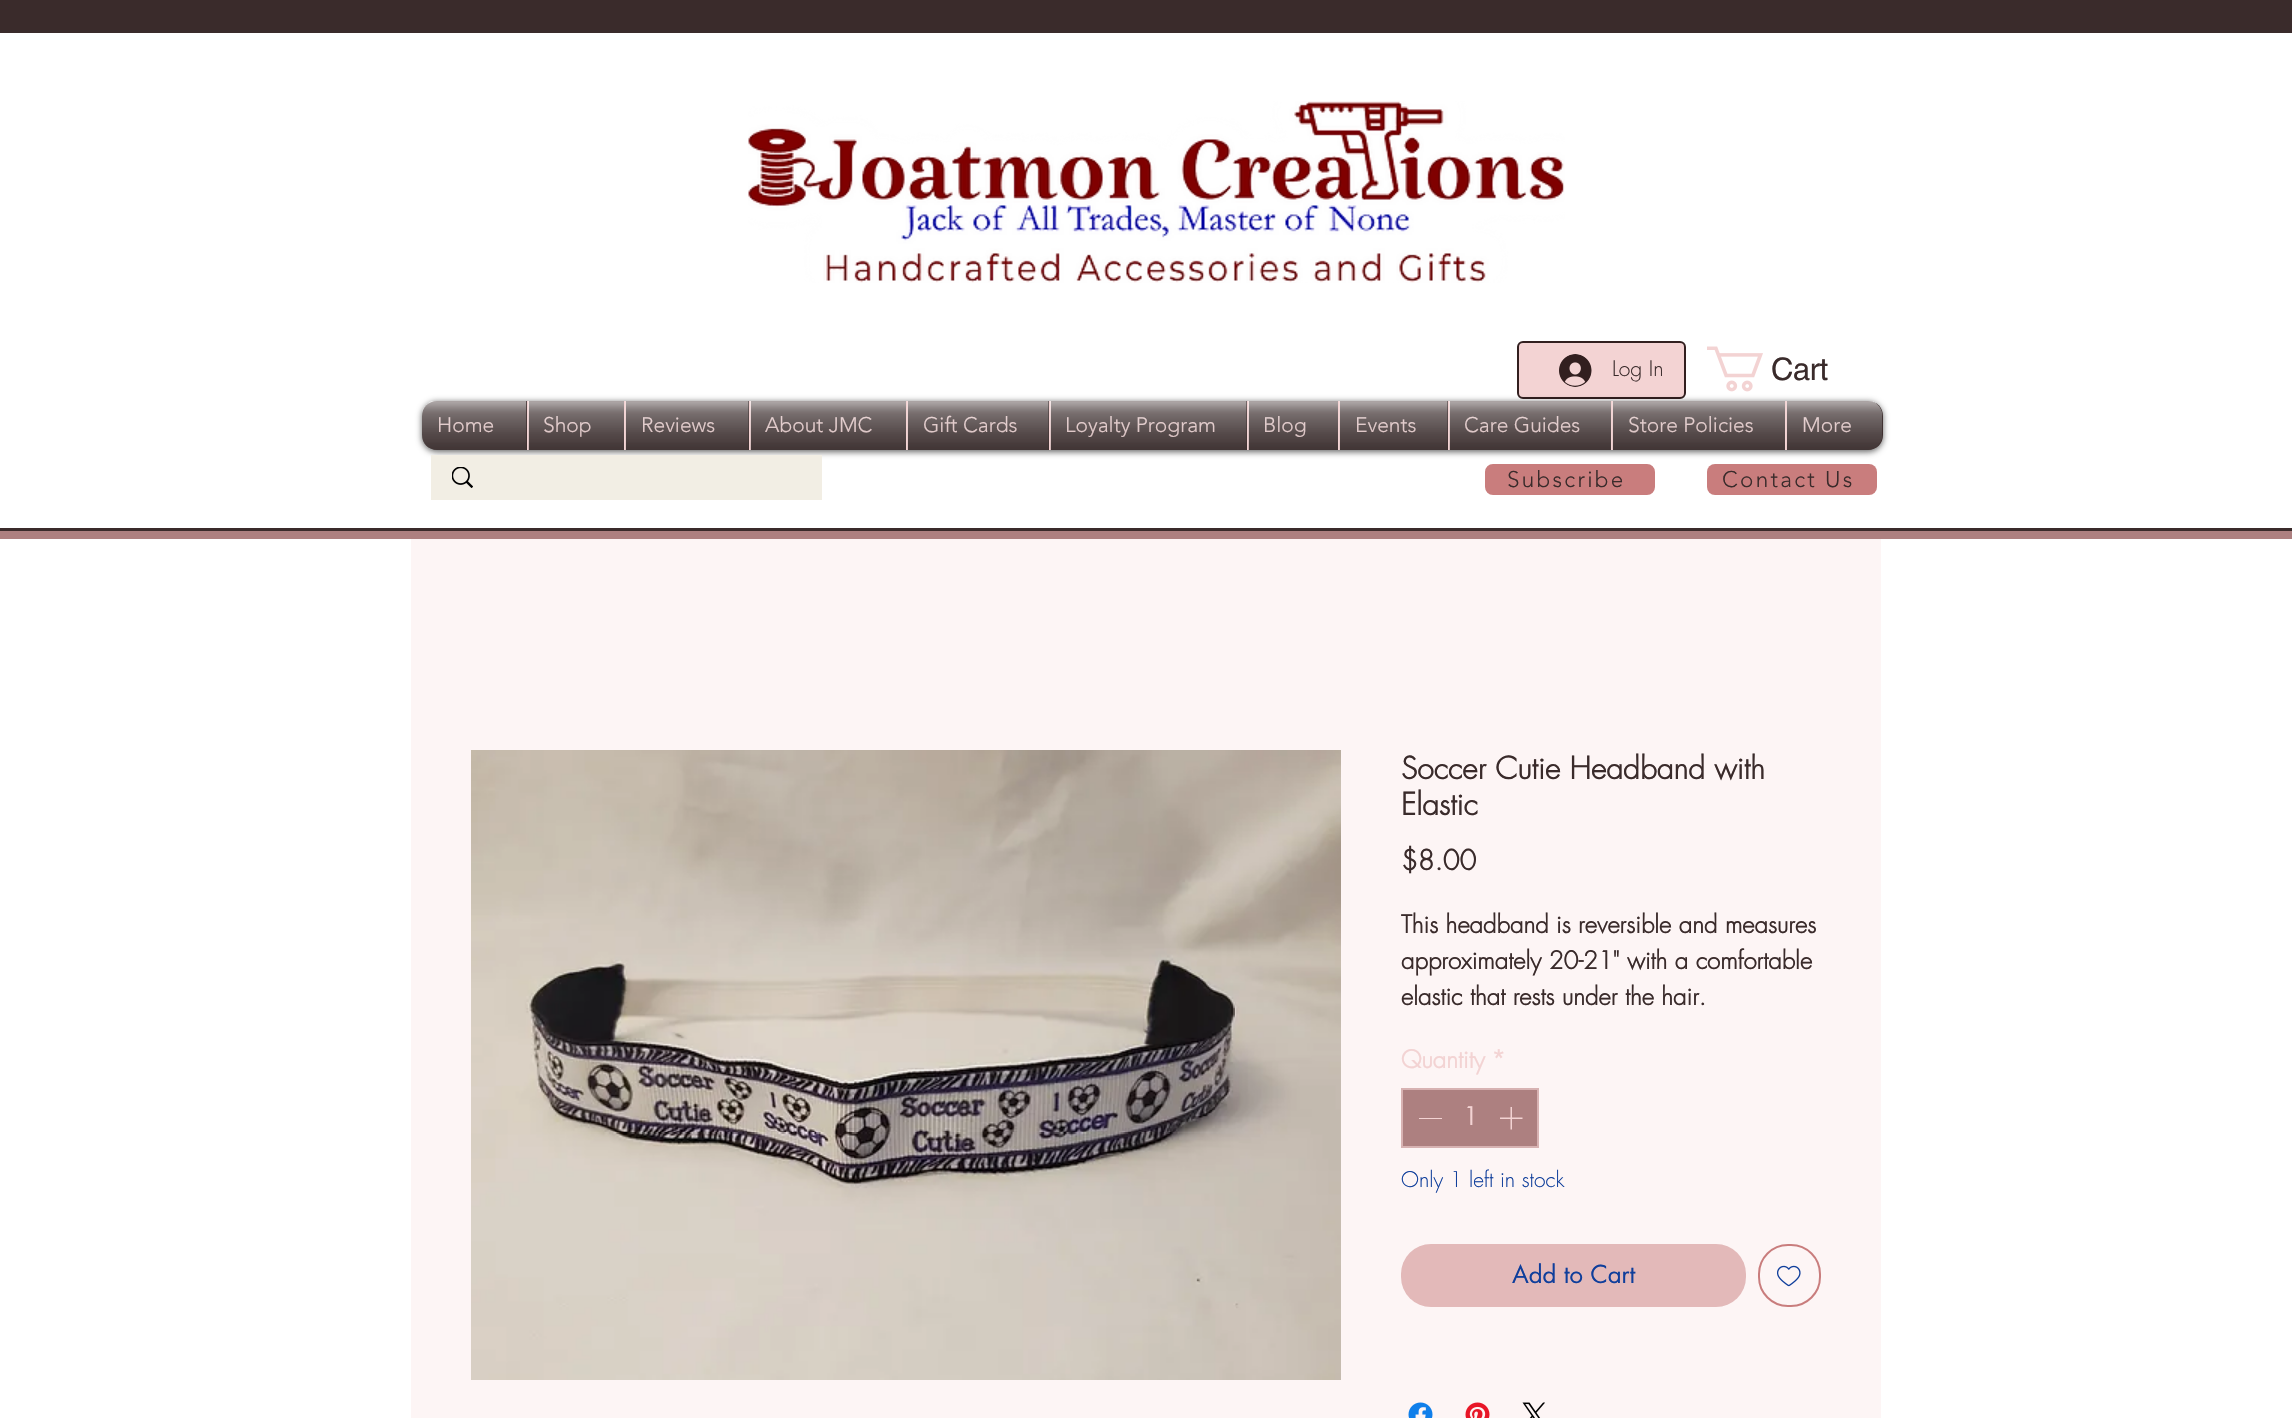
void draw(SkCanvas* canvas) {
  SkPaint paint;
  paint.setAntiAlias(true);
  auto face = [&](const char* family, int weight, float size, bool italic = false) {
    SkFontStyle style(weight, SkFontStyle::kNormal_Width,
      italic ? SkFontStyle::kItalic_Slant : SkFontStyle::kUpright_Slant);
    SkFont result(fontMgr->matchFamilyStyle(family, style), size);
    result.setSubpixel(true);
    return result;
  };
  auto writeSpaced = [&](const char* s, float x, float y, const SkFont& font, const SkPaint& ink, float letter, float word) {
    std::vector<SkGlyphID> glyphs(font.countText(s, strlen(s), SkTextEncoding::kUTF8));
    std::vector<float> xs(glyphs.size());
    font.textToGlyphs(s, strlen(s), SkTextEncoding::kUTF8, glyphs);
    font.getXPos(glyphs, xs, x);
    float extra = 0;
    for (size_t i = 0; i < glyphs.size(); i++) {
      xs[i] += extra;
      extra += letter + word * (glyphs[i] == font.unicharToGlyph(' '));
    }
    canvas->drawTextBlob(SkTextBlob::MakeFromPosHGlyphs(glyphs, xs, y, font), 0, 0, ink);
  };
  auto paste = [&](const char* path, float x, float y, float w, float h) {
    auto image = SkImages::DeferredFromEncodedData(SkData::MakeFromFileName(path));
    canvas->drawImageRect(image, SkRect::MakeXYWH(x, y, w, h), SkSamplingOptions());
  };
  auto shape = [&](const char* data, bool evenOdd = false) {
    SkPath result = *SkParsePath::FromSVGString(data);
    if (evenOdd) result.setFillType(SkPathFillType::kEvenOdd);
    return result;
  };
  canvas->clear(0xffffffff);
  {
    const struct { float x, y, w, h; SkColor color; } items[] = {
      {0, 0, 2292, 531, 0xff3a2b2b},
      {0, 531, 2292, 8, 0xffad8080},
      {0, 33, 2292, 495, 0xffffffff},
    };
    for (auto [x, y, w, h, color] : items) {
      paint.setColor(color);
      canvas->drawRect(SkRect::MakeXYWH(x, y, w, h), paint);
    }
  }
  paste("img/1.png", 748, 101, 817, 182);
  paint.setColor(0xfff3d3d3);
  canvas->drawRoundRect(SkRect::MakeXYWH(1518, 342, 167, 56), 5, 5, paint);
  paint.setStroke(true);
  paint.setStrokeWidth(2);
  paint.setColor(0xff321f1f);
  canvas->drawRoundRect(SkRect::MakeXYWH(1518, 342, 167, 56), 5, 5, paint);
  paste("img/2.png", 1559, 354, 33, 33);
  paste("img/3.png", 1707, 346, 56, 46);
  paint.setStroke(false);
  paint.setColor(0x99000000);
  paint.setMaskFilter(SkMaskFilter::MakeBlur(kNormal_SkBlurStyle, 3));
  canvas->drawRoundRect(SkRect::MakeXYWH(422, 402, 1461, 50), 15, 15, paint);
  paint.setMaskFilter(nullptr);
  paste("img/4.png", 422, 401, 1461, 49);
  paste("img/5.png", 422, 401, 1459, 49);
  paint.setColor(0xff3a2b2b);
  canvas->drawPath(shape("M437 401H527V450H437C428.5 450 422 443.5 422 435V416C422 407.5 428.5 401 437 401Z"), paint);
  {
    const struct { float x, y, w, h; SkColor color; } items[] = {
      {529, 401, 95, 49, 0xff3a2b2b},
      {527, 401, 2, 49, 0xfff3d3d3},
      {626, 401, 123, 49, 0xff3a2b2b},
      {624, 401, 2, 49, 0xfff3d3d3},
      {751, 401, 155, 49, 0xff3a2b2b},
      {749, 401, 2, 49, 0xfff3d3d3},
      {908, 401, 141, 49, 0xff3a2b2b},
      {906, 401, 2, 49, 0xfff3d3d3},
      {1051, 401, 196, 49, 0xff3a2b2b},
      {1049, 401, 2, 49, 0xfff3d3d3},
      {1249, 401, 89, 49, 0xff3a2b2b},
      {1247, 401, 2, 49, 0xfff3d3d3},
      {1340, 401, 108, 49, 0xff3a2b2b},
      {1338, 401, 2, 49, 0xfff3d3d3},
      {1450, 401, 161, 49, 0xff3a2b2b},
      {1448, 401, 2, 49, 0xfff3d3d3},
      {1613, 401, 172, 49, 0xff3a2b2b},
      {1611, 401, 2, 49, 0xfff3d3d3},
    };
    for (auto [x, y, w, h, color] : items) {
      paint.setColor(color);
      canvas->drawRect(SkRect::MakeXYWH(x, y, w, h), paint);
    }
  }
  paint.setColor(0xff3a2b2b);
  canvas->drawPath(shape("M1785 401H1868C1876.5 401 1883 407.5 1883 416V435C1883 443.5 1876.5 450 1868 450H1785Z"), paint);
  paint.setColor(0xfff3d3d3);
  canvas->drawRect(SkRect::MakeXYWH(1785, 401, 2, 49), paint);
  paint.setColor(0xfff2eee4);
  canvas->drawRect(SkRect::MakeXYWH(431, 455, 391, 45), paint);
  paste("img/28.png", 452, 467, 21, 21);
  paint.setColor(0xffc97d7d);
  canvas->drawRoundRect(SkRect::MakeXYWH(1486, 465, 168, 29), 7, 7, paint);
  paint.setStroke(true);
  canvas->drawRoundRect(SkRect::MakeXYWH(1486, 465, 168, 29), 7, 7, paint);
  paint.setStroke(false);
  canvas->drawRoundRect(SkRect::MakeXYWH(1707, 464, 170, 31), 8, 8, paint);
  paint.setColor(0xfffdf5f5);
  canvas->drawRect(SkRect::MakeXYWH(411, 539, 1470, 879), paint);
  paste("img/29.png", 471, 750, 870, 630);
  paint.setColor(0xffad8080);
  canvas->drawRect(SkRect::MakeXYWH(1402, 1089, 136, 58), paint);
  paint.setStroke(true);
  paint.setColor(0xffd7b2b2);
  canvas->drawRect(SkRect::MakeXYWH(1402, 1089, 136, 58), paint);
  paint.setStroke(false);
  paint.setColor(0xfff3d3d3);
  canvas->drawRect(SkRect::MakeXYWH(1419, 1118, 23, 1), paint);
  paste("img/30.png", 1500, 1107, 23, 23);
  paint.setColor(0xffe3b9b9);
  canvas->drawRoundRect(SkRect::MakeXYWH(1401, 1244, 345, 63), 30, 30, paint);
  paint.setStroke(true);
  paint.setColor(0xffc97d7d);
  canvas->drawRoundRect(SkRect::MakeXYWH(1759, 1245, 61, 61), 29, 29, paint);
  paste("img/31.png", 1777, 1265, 24, 22);
  paste("img/32.png", 1408, 1402, 25, 16);
  paste("img/33.png", 1465, 1402, 25, 16);
  paste("img/34.png", 1522, 1402, 23, 16);
  auto f0 = face("futura", 300, 21);
  paint.setStroke(false);
  paint.setColor(0xff3a2b2b);
  canvas->drawString("Log In", 1612, 376, f0, paint);
  auto f1 = face("helvetica", 400, 31);
  writeSpaced("Cart", 1771, 380, f1, paint, -0.5f, 0);
  auto f2 = face("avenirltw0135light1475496", 300, 21);
  paint.setColor(0xfff3d3d3);
  canvas->drawString("Home", 437, 432, f2, paint);
  paste("img/6.png", 422, 401, 105, 49);
  paste("img/7.png", 422, 401, 104, 49);
  canvas->drawString("Shop", 543, 432, f2, paint);
  paste("img/8.png", 528, 401, 96, 49);
  paste("img/9.png", 528, 401, 96, 49);
  canvas->drawString("Reviews", 641, 432, f2, paint);
  paste("img/10.png", 625, 401, 124, 49);
  paste("img/11.png", 625, 401, 124, 49);
  canvas->drawString("About JMC", 765, 432, f2, paint);
  paste("img/12.png", 750, 401, 156, 49);
  paste("img/13.png", 750, 401, 156, 49);
  canvas->drawString("Gift Cards", 923, 432, f2, paint);
  paste("img/14.png", 907, 401, 142, 49);
  paste("img/15.png", 907, 401, 142, 49);
  canvas->drawString("Loyalty Program", 1065, 432, f2, paint);
  paste("img/16.png", 1050, 401, 197, 49);
  paste("img/17.png", 1050, 401, 197, 49);
  canvas->drawString("Blog", 1263, 432, f2, paint);
  paste("img/18.png", 1248, 401, 90, 49);
  paste("img/19.png", 1248, 401, 90, 49);
  canvas->drawString("Events", 1355, 432, f2, paint);
  paste("img/20.png", 1339, 401, 109, 49);
  paste("img/21.png", 1339, 401, 109, 49);
  canvas->drawString("Care Guides", 1464, 432, f2, paint);
  paste("img/22.png", 1449, 401, 162, 49);
  paste("img/23.png", 1449, 401, 162, 49);
  canvas->drawString("Store Policies", 1628, 432, f2, paint);
  paste("img/24.png", 1612, 401, 173, 49);
  paste("img/25.png", 1612, 401, 173, 49);
  canvas->drawString("More", 1802, 432, f2, paint);
  paste("img/26.png", 1786, 401, 97, 49);
  paste("img/27.png", 1786, 401, 96, 49);
  auto f3 = face("avenirltw0135light1475496", 300, 22.5f);
  paint.setColor(0xff3a2b2b);
  writeSpaced("Subscribe", 1507, 487, f3, paint, 2.25f, 0);
  writeSpaced("Contact Us", 1722, 487, f3, paint, 2.25f, 0);
  auto f4 = face("futura", 700, 30);
  canvas->drawString("Soccer Cutie Headband with", 1401, 779, f4, paint);
  canvas->drawString("Elastic", 1401, 815, f4, paint);
  auto f5 = face("futura", 700, 27);
  canvas->drawString("$8.00", 1401, 870, f5, paint);
  auto f6 = face("futura", 700, 24);
  {
    const struct { const char* s; float x, y; } items[] = {
      {"This headband is reversible and measures", 1401, 933},
      {"approximately 20-21\" with a comfortable", 1401, 969},
      {"elastic that rests under the hair.", 1401, 1005},
    };
    for (auto [s, x, y] : items) {
      canvas->drawString(s, x, y, f6, paint);
    }
  }
  paint.setColor(0xfff3d3d3);
  {
    const struct { const char* s; float x, y; } items[] = {
      {"Quantity", 1401, 1068},
      {"*", 1491, 1068},
      {"1", 1463, 1125},
    };
    for (auto [s, x, y] : items) {
      canvas->drawString(s, x, y, f6, paint);
    }
  }
  paint.setColor(0xff0f3e9b);
  canvas->drawString("Only 1 left in stock", 1401, 1187, f0, paint);
  auto f7 = face("futura", 400, 24);
  canvas->drawString("Add to Cart", 1512, 1283, f7, paint);
}
